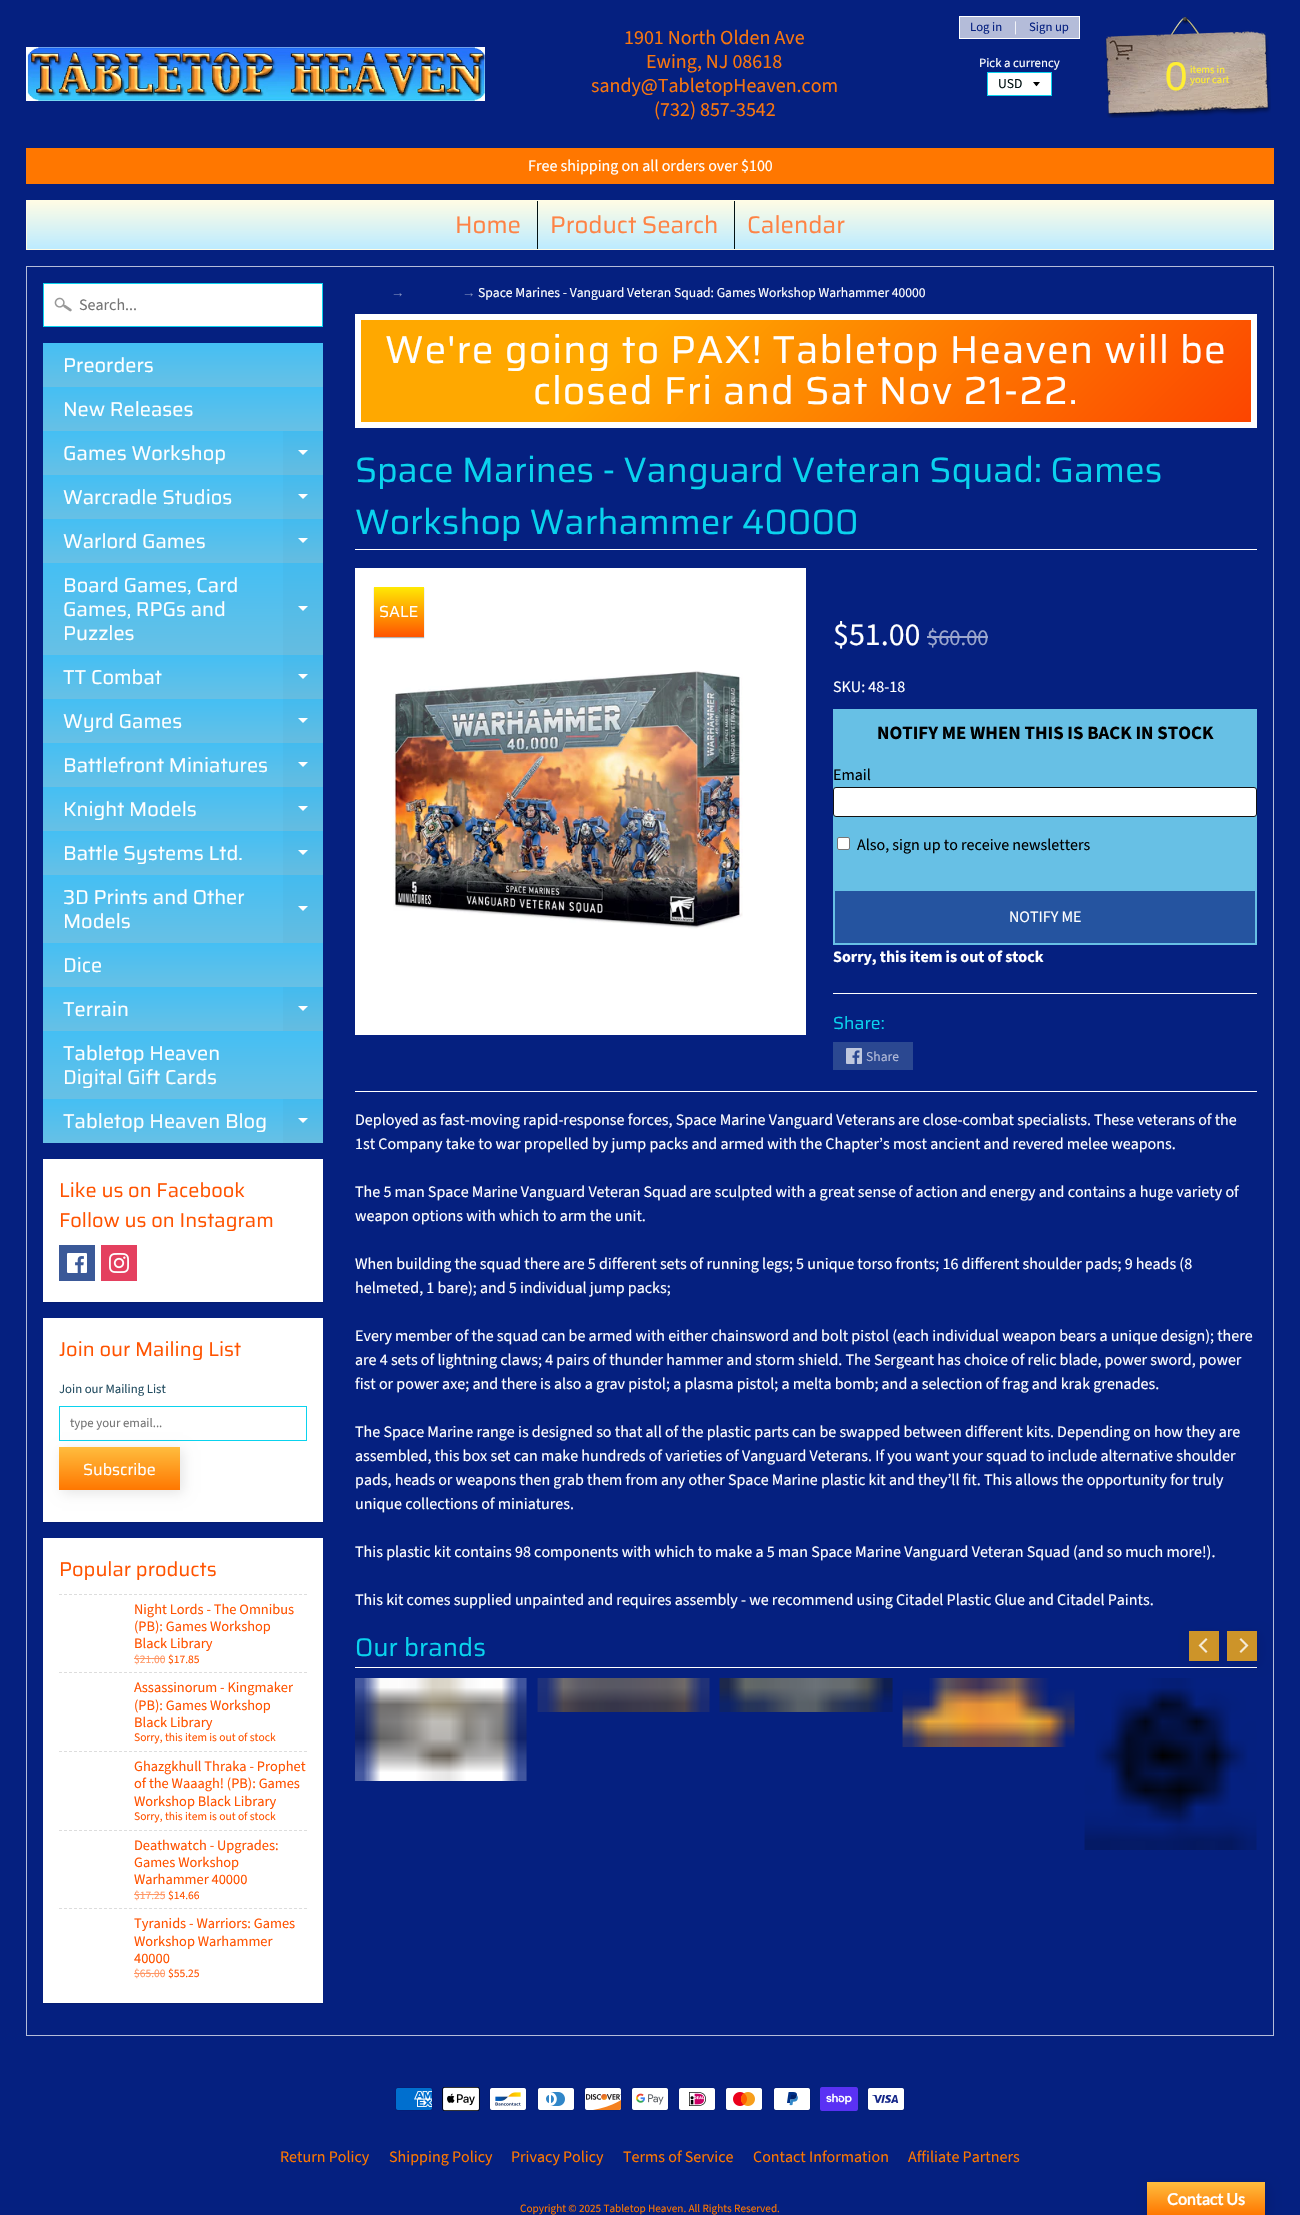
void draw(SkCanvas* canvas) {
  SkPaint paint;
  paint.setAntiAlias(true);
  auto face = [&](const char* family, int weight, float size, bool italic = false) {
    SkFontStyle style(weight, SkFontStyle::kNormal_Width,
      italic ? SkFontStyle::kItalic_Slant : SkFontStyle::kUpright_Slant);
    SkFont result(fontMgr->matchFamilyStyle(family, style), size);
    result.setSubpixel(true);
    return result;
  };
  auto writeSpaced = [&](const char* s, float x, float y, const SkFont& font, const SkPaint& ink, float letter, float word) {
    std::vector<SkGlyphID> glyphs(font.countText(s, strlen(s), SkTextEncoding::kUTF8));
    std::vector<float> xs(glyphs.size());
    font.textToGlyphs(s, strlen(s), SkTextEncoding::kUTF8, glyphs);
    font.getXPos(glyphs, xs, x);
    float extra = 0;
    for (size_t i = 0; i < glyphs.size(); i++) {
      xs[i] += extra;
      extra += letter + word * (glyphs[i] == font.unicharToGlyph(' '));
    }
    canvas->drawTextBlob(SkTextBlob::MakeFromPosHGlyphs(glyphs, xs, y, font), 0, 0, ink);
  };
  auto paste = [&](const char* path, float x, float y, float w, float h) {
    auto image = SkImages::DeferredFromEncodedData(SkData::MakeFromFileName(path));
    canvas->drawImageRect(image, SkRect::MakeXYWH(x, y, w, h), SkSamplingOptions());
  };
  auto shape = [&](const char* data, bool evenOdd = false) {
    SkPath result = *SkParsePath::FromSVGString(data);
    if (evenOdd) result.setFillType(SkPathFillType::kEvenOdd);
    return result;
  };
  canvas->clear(0xff052080);
  paste("img/1.png", 26, 47, 459, 54);
  paint.setColor(0xffb4bcd9);
  canvas->drawRect(SkRect::MakeXYWH(959.5f, 16.5f, 120, 22), paint);
  paint.setStroke(true);
  paint.setStrokeWidth(1);
  paint.setColor(0xffffffff);
  canvas->drawRect(SkRect::MakeXYWH(959.5f, 16.5f, 120, 22), paint);
  paste("img/2.png", 1105, 16, 166, 102);
  paint.setStroke(false);
  paint.setColor(0xffff7700);
  canvas->drawRect(SkRect::MakeXYWH(26, 148, 1248, 36), paint);
  {
    const SkColor colors[] = {0xfffffce5, 0xffbcebff};
    const float stops[] = {0, 1};
    const SkPoint ends[] = {{650, 201}, {650, 249}};
    paint.setShader(SkGradientShader::MakeLinear(ends, colors, stops, 2, SkTileMode::kClamp));
    paint.setAlpha(255);
  }
  canvas->drawRect(SkRect::MakeXYWH(27, 201, 1246, 48), paint);
  paint.setStroke(true);
  paint.setShader(nullptr);
  paint.setColor(0xfffffce5);
  canvas->drawRect(SkRect::MakeXYWH(26.5f, 200.5f, 1247, 49), paint);
  paint.setStroke(false);
  {
    const struct { float x, y, w, h; SkColor color; } items[] = {
      {537, 201, 1, 48, 0xff021213},
      {734, 201, 1, 48, 0xff021213},
      {988, 73, 63, 22, 0xffffffff},
    };
    for (auto [x, y, w, h, color] : items) {
      paint.setColor(color);
      canvas->drawRect(SkRect::MakeXYWH(x, y, w, h), paint);
    }
  }
  paint.setColor(0xff000000);
  canvas->drawPath(shape("M1033 82C1037.5 87.5 1035.5 87.5 1040 82Z"), paint);
  paint.setStroke(true);
  paint.setColor(0xff0ad3ee);
  canvas->drawRect(SkRect::MakeXYWH(987.5f, 72.5f, 64, 23), paint);
  paint.setColor(0xffb4bcd9);
  canvas->drawRect(SkRect::MakeXYWH(26.5f, 266.5f, 1247, 1769), paint);
  paint.setStroke(false);
  paint.setColor(0xffffffff);
  canvas->drawRect(SkRect::MakeXYWH(44, 284, 278, 42), paint);
  paste("img/3.png", 54, 297, 18, 15);
  paint.setStroke(true);
  paint.setColor(0xff0ad3ee);
  canvas->drawRect(SkRect::MakeXYWH(43.5f, 283.5f, 279, 43), paint);
  paint.setStroke(false);
  {
    const SkColor colors[] = {0xff44bff4, 0xff67c0e5};
    const float stops[] = {0, 1};
    const SkPoint ends[] = {{183, 343}, {183, 387}};
    paint.setShader(SkGradientShader::MakeLinear(ends, colors, stops, 2, SkTileMode::kClamp));
    paint.setAlpha(255);
  }
  canvas->drawRect(SkRect::MakeXYWH(43, 343, 280, 44), paint);
  {
    const SkColor colors[] = {0xff44bff4, 0xff67c0e5};
    const float stops[] = {0, 1};
    const SkPoint ends[] = {{183, 387}, {183, 431}};
    paint.setShader(SkGradientShader::MakeLinear(ends, colors, stops, 2, SkTileMode::kClamp));
    paint.setAlpha(255);
  }
  canvas->drawRect(SkRect::MakeXYWH(43, 387, 280, 44), paint);
  {
    const SkColor colors[] = {0xff44bff4, 0xff67c0e5};
    const float stops[] = {0, 1};
    const SkPoint ends[] = {{183, 431}, {183, 475}};
    paint.setShader(SkGradientShader::MakeLinear(ends, colors, stops, 2, SkTileMode::kClamp));
    paint.setAlpha(255);
  }
  canvas->drawRect(SkRect::MakeXYWH(43, 431, 240, 44), paint);
  {
    const SkColor colors[] = {0xff43bbef, 0xff65bce0};
    const float stops[] = {0, 1};
    const SkPoint ends[] = {{183, 431}, {183, 475}};
    paint.setShader(SkGradientShader::MakeLinear(ends, colors, stops, 2, SkTileMode::kClamp));
    paint.setAlpha(255);
  }
  canvas->drawRect(SkRect::MakeXYWH(283, 431, 40, 44), paint);
  paint.setShader(nullptr);
  paint.setColor(0xffffffff);
  canvas->drawPath(shape("M298 450H308L303 455Z"), paint);
  {
    const SkColor colors[] = {0xff44bff4, 0xff67c0e5};
    const float stops[] = {0, 1};
    const SkPoint ends[] = {{183, 475}, {183, 519}};
    paint.setShader(SkGradientShader::MakeLinear(ends, colors, stops, 2, SkTileMode::kClamp));
    paint.setAlpha(255);
  }
  canvas->drawRect(SkRect::MakeXYWH(43, 475, 240, 44), paint);
  {
    const SkColor colors[] = {0xff43bbef, 0xff65bce0};
    const float stops[] = {0, 1};
    const SkPoint ends[] = {{183, 475}, {183, 519}};
    paint.setShader(SkGradientShader::MakeLinear(ends, colors, stops, 2, SkTileMode::kClamp));
    paint.setAlpha(255);
  }
  canvas->drawRect(SkRect::MakeXYWH(283, 475, 40, 44), paint);
  paint.setShader(nullptr);
  paint.setColor(0xffffffff);
  canvas->drawPath(shape("M298 494H308L303 499Z"), paint);
  {
    const SkColor colors[] = {0xff44bff4, 0xff67c0e5};
    const float stops[] = {0, 1};
    const SkPoint ends[] = {{183, 519}, {183, 563}};
    paint.setShader(SkGradientShader::MakeLinear(ends, colors, stops, 2, SkTileMode::kClamp));
    paint.setAlpha(255);
  }
  canvas->drawRect(SkRect::MakeXYWH(43, 519, 240, 44), paint);
  {
    const SkColor colors[] = {0xff43bbef, 0xff65bce0};
    const float stops[] = {0, 1};
    const SkPoint ends[] = {{183, 519}, {183, 563}};
    paint.setShader(SkGradientShader::MakeLinear(ends, colors, stops, 2, SkTileMode::kClamp));
    paint.setAlpha(255);
  }
  canvas->drawRect(SkRect::MakeXYWH(283, 519, 40, 44), paint);
  paint.setShader(nullptr);
  paint.setColor(0xffffffff);
  canvas->drawPath(shape("M298 538H308L303 543Z"), paint);
  {
    const SkColor colors[] = {0xff44bff4, 0xff67c0e5};
    const float stops[] = {0, 1};
    const SkPoint ends[] = {{183, 563}, {183, 655}};
    paint.setShader(SkGradientShader::MakeLinear(ends, colors, stops, 2, SkTileMode::kClamp));
    paint.setAlpha(255);
  }
  canvas->drawRect(SkRect::MakeXYWH(43, 563, 240, 92), paint);
  {
    const SkColor colors[] = {0xff43bbef, 0xff65bce0};
    const float stops[] = {0, 1};
    const SkPoint ends[] = {{183, 563}, {183, 655}};
    paint.setShader(SkGradientShader::MakeLinear(ends, colors, stops, 2, SkTileMode::kClamp));
    paint.setAlpha(255);
  }
  canvas->drawRect(SkRect::MakeXYWH(283, 563, 40, 92), paint);
  paint.setShader(nullptr);
  paint.setColor(0xffffffff);
  canvas->drawPath(shape("M298 606H308L303 611Z"), paint);
  {
    const SkColor colors[] = {0xff44bff4, 0xff67c0e5};
    const float stops[] = {0, 1};
    const SkPoint ends[] = {{183, 655}, {183, 699}};
    paint.setShader(SkGradientShader::MakeLinear(ends, colors, stops, 2, SkTileMode::kClamp));
    paint.setAlpha(255);
  }
  canvas->drawRect(SkRect::MakeXYWH(43, 655, 240, 44), paint);
  {
    const SkColor colors[] = {0xff43bbef, 0xff65bce0};
    const float stops[] = {0, 1};
    const SkPoint ends[] = {{183, 655}, {183, 699}};
    paint.setShader(SkGradientShader::MakeLinear(ends, colors, stops, 2, SkTileMode::kClamp));
    paint.setAlpha(255);
  }
  canvas->drawRect(SkRect::MakeXYWH(283, 655, 40, 44), paint);
  paint.setShader(nullptr);
  paint.setColor(0xffffffff);
  canvas->drawPath(shape("M298 674H308L303 679Z"), paint);
  {
    const SkColor colors[] = {0xff44bff4, 0xff67c0e5};
    const float stops[] = {0, 1};
    const SkPoint ends[] = {{183, 699}, {183, 743}};
    paint.setShader(SkGradientShader::MakeLinear(ends, colors, stops, 2, SkTileMode::kClamp));
    paint.setAlpha(255);
  }
  canvas->drawRect(SkRect::MakeXYWH(43, 699, 240, 44), paint);
  {
    const SkColor colors[] = {0xff43bbef, 0xff65bce0};
    const float stops[] = {0, 1};
    const SkPoint ends[] = {{183, 699}, {183, 743}};
    paint.setShader(SkGradientShader::MakeLinear(ends, colors, stops, 2, SkTileMode::kClamp));
    paint.setAlpha(255);
  }
  canvas->drawRect(SkRect::MakeXYWH(283, 699, 40, 44), paint);
  paint.setShader(nullptr);
  paint.setColor(0xffffffff);
  canvas->drawPath(shape("M298 718H308L303 723Z"), paint);
  {
    const SkColor colors[] = {0xff44bff4, 0xff67c0e5};
    const float stops[] = {0, 1};
    const SkPoint ends[] = {{183, 743}, {183, 787}};
    paint.setShader(SkGradientShader::MakeLinear(ends, colors, stops, 2, SkTileMode::kClamp));
    paint.setAlpha(255);
  }
  canvas->drawRect(SkRect::MakeXYWH(43, 743, 240, 44), paint);
  {
    const SkColor colors[] = {0xff43bbef, 0xff65bce0};
    const float stops[] = {0, 1};
    const SkPoint ends[] = {{183, 743}, {183, 787}};
    paint.setShader(SkGradientShader::MakeLinear(ends, colors, stops, 2, SkTileMode::kClamp));
    paint.setAlpha(255);
  }
  canvas->drawRect(SkRect::MakeXYWH(283, 743, 40, 44), paint);
  paint.setShader(nullptr);
  paint.setColor(0xffffffff);
  canvas->drawPath(shape("M298 762H308L303 767Z"), paint);
  {
    const SkColor colors[] = {0xff44bff4, 0xff67c0e5};
    const float stops[] = {0, 1};
    const SkPoint ends[] = {{183, 787}, {183, 831}};
    paint.setShader(SkGradientShader::MakeLinear(ends, colors, stops, 2, SkTileMode::kClamp));
    paint.setAlpha(255);
  }
  canvas->drawRect(SkRect::MakeXYWH(43, 787, 240, 44), paint);
  {
    const SkColor colors[] = {0xff43bbef, 0xff65bce0};
    const float stops[] = {0, 1};
    const SkPoint ends[] = {{183, 787}, {183, 831}};
    paint.setShader(SkGradientShader::MakeLinear(ends, colors, stops, 2, SkTileMode::kClamp));
    paint.setAlpha(255);
  }
  canvas->drawRect(SkRect::MakeXYWH(283, 787, 40, 44), paint);
  paint.setShader(nullptr);
  paint.setColor(0xffffffff);
  canvas->drawPath(shape("M298 806H308L303 811Z"), paint);
  {
    const SkColor colors[] = {0xff44bff4, 0xff67c0e5};
    const float stops[] = {0, 1};
    const SkPoint ends[] = {{183, 831}, {183, 875}};
    paint.setShader(SkGradientShader::MakeLinear(ends, colors, stops, 2, SkTileMode::kClamp));
    paint.setAlpha(255);
  }
  canvas->drawRect(SkRect::MakeXYWH(43, 831, 240, 44), paint);
  {
    const SkColor colors[] = {0xff43bbef, 0xff65bce0};
    const float stops[] = {0, 1};
    const SkPoint ends[] = {{183, 831}, {183, 875}};
    paint.setShader(SkGradientShader::MakeLinear(ends, colors, stops, 2, SkTileMode::kClamp));
    paint.setAlpha(255);
  }
  canvas->drawRect(SkRect::MakeXYWH(283, 831, 40, 44), paint);
  paint.setShader(nullptr);
  paint.setColor(0xffffffff);
  canvas->drawPath(shape("M298 850H308L303 855Z"), paint);
  {
    const SkColor colors[] = {0xff44bff4, 0xff67c0e5};
    const float stops[] = {0, 1};
    const SkPoint ends[] = {{183, 875}, {183, 943}};
    paint.setShader(SkGradientShader::MakeLinear(ends, colors, stops, 2, SkTileMode::kClamp));
    paint.setAlpha(255);
  }
  canvas->drawRect(SkRect::MakeXYWH(43, 875, 240, 68), paint);
  {
    const SkColor colors[] = {0xff43bbef, 0xff65bce0};
    const float stops[] = {0, 1};
    const SkPoint ends[] = {{183, 875}, {183, 943}};
    paint.setShader(SkGradientShader::MakeLinear(ends, colors, stops, 2, SkTileMode::kClamp));
    paint.setAlpha(255);
  }
  canvas->drawRect(SkRect::MakeXYWH(283, 875, 40, 68), paint);
  paint.setShader(nullptr);
  paint.setColor(0xffffffff);
  canvas->drawPath(shape("M298 906H308L303 911Z"), paint);
  {
    const SkColor colors[] = {0xff44bff4, 0xff67c0e5};
    const float stops[] = {0, 1};
    const SkPoint ends[] = {{183, 943}, {183, 987}};
    paint.setShader(SkGradientShader::MakeLinear(ends, colors, stops, 2, SkTileMode::kClamp));
    paint.setAlpha(255);
  }
  canvas->drawRect(SkRect::MakeXYWH(43, 943, 280, 44), paint);
  {
    const SkColor colors[] = {0xff44bff4, 0xff67c0e5};
    const float stops[] = {0, 1};
    const SkPoint ends[] = {{183, 987}, {183, 1031}};
    paint.setShader(SkGradientShader::MakeLinear(ends, colors, stops, 2, SkTileMode::kClamp));
    paint.setAlpha(255);
  }
  canvas->drawRect(SkRect::MakeXYWH(43, 987, 240, 44), paint);
  {
    const SkColor colors[] = {0xff43bbef, 0xff65bce0};
    const float stops[] = {0, 1};
    const SkPoint ends[] = {{183, 987}, {183, 1031}};
    paint.setShader(SkGradientShader::MakeLinear(ends, colors, stops, 2, SkTileMode::kClamp));
    paint.setAlpha(255);
  }
  canvas->drawRect(SkRect::MakeXYWH(283, 987, 40, 44), paint);
  paint.setShader(nullptr);
  paint.setColor(0xffffffff);
  canvas->drawPath(shape("M298 1006H308L303 1011Z"), paint);
  {
    const SkColor colors[] = {0xff44bff4, 0xff67c0e5};
    const float stops[] = {0, 1};
    const SkPoint ends[] = {{183, 1031}, {183, 1099}};
    paint.setShader(SkGradientShader::MakeLinear(ends, colors, stops, 2, SkTileMode::kClamp));
    paint.setAlpha(255);
  }
  canvas->drawRect(SkRect::MakeXYWH(43, 1031, 280, 68), paint);
  {
    const SkColor colors[] = {0xff44bff4, 0xff67c0e5};
    const float stops[] = {0, 1};
    const SkPoint ends[] = {{183, 1099}, {183, 1143}};
    paint.setShader(SkGradientShader::MakeLinear(ends, colors, stops, 2, SkTileMode::kClamp));
    paint.setAlpha(255);
  }
  canvas->drawRect(SkRect::MakeXYWH(43, 1099, 240, 44), paint);
  {
    const SkColor colors[] = {0xff43bbef, 0xff65bce0};
    const float stops[] = {0, 1};
    const SkPoint ends[] = {{183, 1099}, {183, 1143}};
    paint.setShader(SkGradientShader::MakeLinear(ends, colors, stops, 2, SkTileMode::kClamp));
    paint.setAlpha(255);
  }
  canvas->drawRect(SkRect::MakeXYWH(283, 1099, 40, 44), paint);
  paint.setShader(nullptr);
  paint.setColor(0xffffffff);
  canvas->drawPath(shape("M298 1118H308L303 1123Z"), paint);
  paint.setColor(0x1a000000);
  paint.setMaskFilter(SkMaskFilter::MakeBlur(kNormal_SkBlurStyle, 0.5f));
  canvas->drawRect(SkRect::MakeXYWH(43, 1160, 280, 143), paint);
  paint.setMaskFilter(nullptr);
  paint.setColor(0xffffffff);
  canvas->drawRect(SkRect::MakeXYWH(43, 1159, 280, 143), paint);
  paint.setColor(0xff3b5998);
  canvas->drawRect(SkRect::MakeXYWH(59, 1245, 36, 36), paint);
  paste("img/4.png", 67, 1253, 20, 20);
  paint.setColor(0xffe4405f);
  canvas->drawRect(SkRect::MakeXYWH(101, 1245, 36, 36), paint);
  paste("img/5.png", 109, 1253, 20, 20);
  paint.setColor(0x1a000000);
  paint.setMaskFilter(SkMaskFilter::MakeBlur(kNormal_SkBlurStyle, 0.5f));
  canvas->drawRect(SkRect::MakeXYWH(43, 1319, 280, 204), paint);
  paint.setMaskFilter(nullptr);
  paint.setColor(0xffffffff);
  canvas->drawRect(SkRect::MakeXYWH(43, 1318, 280, 204), paint);
  paint.setStroke(true);
  paint.setColor(0xff0ad3ee);
  canvas->drawRect(SkRect::MakeXYWH(59.5f, 1406.5f, 247, 34), paint);
  paint.setStroke(false);
  paint.setColor(0x1a000000);
  paint.setMaskFilter(SkMaskFilter::MakeBlur(kNormal_SkBlurStyle, 6));
  canvas->drawRect(SkRect::MakeXYWH(62, 1450, 121, 43), paint);
  paint.setMaskFilter(nullptr);
  {
    const SkColor colors[] = {0xffffbd3e, 0xffff7700};
    const float stops[] = {0, 1};
    const SkPoint ends[] = {{120, 1447}, {120, 1490}};
    paint.setShader(SkGradientShader::MakeLinear(ends, colors, stops, 2, SkTileMode::kClamp));
    paint.setAlpha(255);
  }
  canvas->drawRect(SkRect::MakeXYWH(59, 1447, 121, 43), paint);
  paint.setShader(nullptr);
  paint.setColor(0x1a000000);
  paint.setMaskFilter(SkMaskFilter::MakeBlur(kNormal_SkBlurStyle, 0.5f));
  canvas->drawRect(SkRect::MakeXYWH(43, 1539, 280, 465), paint);
  paint.setMaskFilter(nullptr);
  paint.setColor(0xffffffff);
  canvas->drawRect(SkRect::MakeXYWH(43, 1538, 280, 465), paint);
  paint.setStroke(true);
  paint.setColor(0xffdddddd);
  paint.setPathEffect(SkDashPathEffect::Make({{3, 2}}, 0));
  canvas->drawPath(shape("M59 1594.5H307"), paint);
  paint.setPathEffect(nullptr);
  paint.setStroke(false);
  paint.setColor(0xffff9866);
  canvas->drawRect(SkRect::MakeXYWH(134, 1658, 31, 1), paint);
  paint.setStroke(true);
  paint.setColor(0xffdddddd);
  paint.setPathEffect(SkDashPathEffect::Make({{3, 2}}, 0));
  canvas->drawPath(shape("M59 1672.5H307"), paint);
  paint.setPathEffect(nullptr);
  paint.setPathEffect(SkDashPathEffect::Make({{3, 2}}, 0));
  canvas->drawPath(shape("M59 1751.5H307"), paint);
  paint.setPathEffect(nullptr);
  paint.setPathEffect(SkDashPathEffect::Make({{3, 2}}, 0));
  canvas->drawPath(shape("M59 1830.5H307"), paint);
  paint.setPathEffect(nullptr);
  paint.setStroke(false);
  paint.setColor(0xffff9866);
  canvas->drawRect(SkRect::MakeXYWH(134, 1894, 31, 1), paint);
  paint.setStroke(true);
  paint.setColor(0xffdddddd);
  paint.setPathEffect(SkDashPathEffect::Make({{3, 2}}, 0));
  canvas->drawPath(shape("M59 1908.5H307"), paint);
  paint.setPathEffect(nullptr);
  paint.setStroke(false);
  paint.setColor(0xffff9866);
  canvas->drawRect(SkRect::MakeXYWH(134, 1973, 31, 1), paint);
  paint.setColor(0xffffffff);
  canvas->drawRect(SkRect::MakeXYWH(355, 314, 902, 114), paint);
  {
    const SkColor colors[] = {0xffffa800, 0xfffc4500};
    const float stops[] = {0.3f, 1};
    const SkPoint ends[] = {{558, 123}, {1054, 619}};
    paint.setShader(SkGradientShader::MakeLinear(ends, colors, stops, 2, SkTileMode::kClamp));
    paint.setAlpha(255);
  }
  canvas->drawRect(SkRect::MakeXYWH(361, 320, 890, 102), paint);
  paint.setShader(nullptr);
  paint.setColor(0xffffffff);
  canvas->drawRect(SkRect::MakeXYWH(355, 549, 902, 1), paint);
  canvas->drawRect(SkRect::MakeXYWH(355, 568, 451, 467), paint);
  paint.setColor(0x4d000000);
  paint.setMaskFilter(SkMaskFilter::MakeBlur(kNormal_SkBlurStyle, 0.5f));
  canvas->drawRect(SkRect::MakeXYWH(374, 588, 50, 50), paint);
  paint.setMaskFilter(nullptr);
  {
    const SkColor colors[] = {0xffffea04, 0xffff5300};
    const float stops[] = {0, 1};
    const SkPoint ends[] = {{399, 587}, {399, 637}};
    paint.setShader(SkGradientShader::MakeLinear(ends, colors, stops, 2, SkTileMode::kClamp));
    paint.setAlpha(255);
  }
  canvas->drawRect(SkRect::MakeXYWH(374, 587, 50, 50), paint);
  paste("img/6.png", 391, 670, 352, 259);
  paint.setShader(nullptr);
  paint.setColor(0xff9ba6cc);
  canvas->drawRect(SkRect::MakeXYWH(927, 636, 61, 2), paint);
  paint.setColor(0xff67c0e5);
  canvas->drawRect(SkRect::MakeXYWH(833, 709, 424, 236), paint);
  paint.setColor(0xffffffff);
  canvas->drawRoundRect(SkRect::MakeXYWH(833.5f, 787.5f, 423, 29), 2.5f, 2.5f, paint);
  paint.setStroke(true);
  paint.setColor(0xff121212);
  canvas->drawRoundRect(SkRect::MakeXYWH(833.5f, 787.5f, 423, 29), 2.5f, 2.5f, paint);
  paint.setStroke(false);
  paint.setColor(0xffffffff);
  canvas->drawRoundRect(SkRect::MakeXYWH(837.5f, 837.5f, 12, 12), 1.5f, 1.5f, paint);
  paint.setStroke(true);
  paint.setColor(0xff767676);
  canvas->drawRoundRect(SkRect::MakeXYWH(837.5f, 837.5f, 12, 12), 1.5f, 1.5f, paint);
  paint.setStroke(false);
  paint.setColor(0xff2554a0);
  canvas->drawRoundRect(SkRect::MakeXYWH(834, 890, 422, 54), 1, 1, paint);
  paint.setStroke(true);
  paint.setStrokeWidth(2);
  paint.setColor(0xff67c0e5);
  canvas->drawRoundRect(SkRect::MakeXYWH(834, 890, 422, 54), 1, 1, paint);
  paint.setStroke(false);
  paint.setColor(0xffffffff);
  canvas->drawRect(SkRect::MakeXYWH(833, 993, 424, 1), paint);
  paint.setColor(0xff2b4891);
  canvas->drawRect(SkRect::MakeXYWH(833, 1042, 80, 28), paint);
  paste("img/7.png", 846, 1048, 16, 16);
  paint.setColor(0xffffffff);
  canvas->drawRect(SkRect::MakeXYWH(355, 1091, 902, 1), paint);
  paste("img/14.png", 1084, 1678, 173, 172);
  canvas->drawRect(SkRect::MakeXYWH(355, 1667, 902, 1), paint);
  paint.setColor(0x14000000);
  paint.setMaskFilter(SkMaskFilter::MakeBlur(kNormal_SkBlurStyle, 6));
  canvas->drawRect(SkRect::MakeXYWH(1192, 1634, 30, 30), paint);
  paint.setMaskFilter(nullptr);
  paint.setColor(0xffcd9429);
  canvas->drawRect(SkRect::MakeXYWH(1189, 1631, 30, 30), paint);
  paste("img/8.png", 1198, 1638, 10, 15);
  paint.setColor(0x14000000);
  paint.setMaskFilter(SkMaskFilter::MakeBlur(kNormal_SkBlurStyle, 6));
  canvas->drawRect(SkRect::MakeXYWH(1230, 1634, 30, 30), paint);
  paint.setMaskFilter(nullptr);
  paint.setColor(0xffcd9429);
  canvas->drawRect(SkRect::MakeXYWH(1227, 1631, 30, 30), paint);
  paste("img/9.png", 1239, 1638, 10, 15);
  paste("img/10.png", 355, 1678, 172, 103);
  paste("img/11.png", 537, 1678, 173, 34);
  paste("img/12.png", 719, 1678, 174, 34);
  paste("img/13.png", 902, 1678, 173, 69);
  paste("img/15.png", 395, 2087, 38, 24);
  paste("img/16.png", 442, 2087, 38, 24);
  paste("img/17.png", 489, 2087, 38, 24);
  paste("img/18.png", 537, 2087, 38, 24);
  paste("img/19.png", 584, 2087, 38, 24);
  paste("img/20.png", 631, 2087, 38, 24);
  paste("img/21.png", 678, 2087, 38, 24);
  paste("img/22.png", 725, 2087, 38, 24);
  paste("img/23.png", 773, 2087, 38, 24);
  paste("img/24.png", 820, 2087, 38, 24);
  paste("img/25.png", 867, 2087, 38, 24);
  paint.setColor(0x1a000000);
  paint.setMaskFilter(SkMaskFilter::MakeBlur(kNormal_SkBlurStyle, 6));
  canvas->drawRect(SkRect::MakeXYWH(1150, 2185, 118, 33), paint);
  paint.setMaskFilter(nullptr);
  {
    const SkColor colors[] = {0xffffbd3e, 0xffff7700};
    const float stops[] = {0, 1};
    const SkPoint ends[] = {{1206, 2182}, {1206, 2215}};
    paint.setShader(SkGradientShader::MakeLinear(ends, colors, stops, 2, SkTileMode::kClamp));
    paint.setAlpha(255);
  }
  canvas->drawRect(SkRect::MakeXYWH(1147, 2182, 118, 33), paint);
  auto f0 = face("Source Sans Pro", 400, 20);
  paint.setShader(nullptr);
  paint.setColor(0xfffa760e);
  {
    const struct { const char* s; float x, y; } items[] = {
      {"1901 North Olden Ave", 624, 44},
      {"Ewing, NJ 08618", 646, 68},
      {"sandy@TabletopHeaven.com", 591, 92},
      {"(732) 857-3542", 654, 116},
    };
    for (auto [s, x, y] : items) {
      canvas->drawString(s, x, y, f0, paint);
    }
  }
  auto f1 = face("Source Sans Pro", 400, 12.75f);
  paint.setColor(0xff052080);
  canvas->drawString("Log in", 970, 31, f1, paint);
  paint.setColor(0xffffffff);
  canvas->drawString("|", 1014, 31, f1, paint);
  paint.setColor(0xff052080);
  canvas->drawString("Sign up", 1029, 31, f1, paint);
  auto f2 = face("Liberation Sans", 400, 40);
  paint.setColor(0xffffee33);
  canvas->drawString("0", 1165, 90, f2, paint);
  auto f3 = face("Source Sans Pro", 400, 10.5f);
  canvas->drawString("items in", 1190, 73, f3, paint);
  canvas->drawString("your cart", 1190, 83, f3, paint);
  auto f4 = face("Source Sans Pro", 400, 16);
  paint.setColor(0xffffffff);
  canvas->drawString("Free shipping on all orders over $100", 528, 171, f4, paint);
  auto f5 = face("Saira", 400, 24);
  paint.setColor(0xfffe8345);
  {
    const struct { const char* s; float x, y; } items[] = {
      {"Home", 455, 233},
      {"Product Search", 550, 233},
      {"Calendar", 747, 233},
    };
    for (auto [s, x, y] : items) {
      canvas->drawString(s, x, y, f5, paint);
    }
  }
  paint.setColor(0xffffffff);
  canvas->drawString("Pick a currency", 979, 67, f1, paint);
  auto f6 = face("Source Sans Pro", 400, 13.6f);
  paint.setColor(0xff021213);
  canvas->drawString("USD", 998, 88, f6, paint);
  paint.setColor(0xff757575);
  canvas->drawString("Search...", 79, 310, f4, paint);
  auto f7 = face("Saira", 400, 20);
  paint.setColor(0xffffffff);
  {
    const struct { const char* s; float x, y; } items[] = {
      {"Preorders", 63, 372},
      {"New Releases", 63, 416},
      {"Games Workshop", 63, 460},
      {"Warcradle Studios", 63, 504},
      {"Warlord Games", 63, 548},
      {"Board Games, Card", 63, 592},
      {"Games, RPGs and", 63, 616},
      {"Puzzles", 63, 640},
      {"TT Combat", 63, 684},
      {"Wyrd Games", 63, 728},
      {"Battlefront Miniatures", 63, 772},
      {"Knight Models", 63, 816},
      {"Battle Systems Ltd.", 63, 860},
      {"3D Prints and Other", 63, 904},
      {"Models", 63, 928},
      {"Dice", 63, 972},
      {"Terrain", 63, 1016},
      {"Tabletop Heaven", 63, 1060},
      {"Digital Gift Cards", 63, 1084},
      {"Tabletop Heaven Blog", 63, 1128},
    };
    for (auto [s, x, y] : items) {
      canvas->drawString(s, x, y, f7, paint);
    }
  }
  paint.setColor(0xffff5300);
  {
    const struct { const char* s; float x, y; } items[] = {
      {"Like us on Facebook", 59, 1197},
      {"Follow us on Instagram", 59, 1227},
      {"Join our Mailing List", 59, 1356},
    };
    for (auto [s, x, y] : items) {
      canvas->drawString(s, x, y, f7, paint);
    }
  }
  paint.setColor(0xff234d61);
  canvas->drawString("Join our Mailing List", 59, 1393, f1, paint);
  paint.setColor(0xff757575);
  canvas->drawString("type your email...", 70, 1427, f1, paint);
  auto f8 = face("Saira", 400, 16);
  paint.setColor(0xffffffff);
  canvas->drawString("Subscribe", 83, 1475, f8, paint);
  paint.setColor(0xffff5300);
  canvas->drawString("Popular products", 59, 1576, f7, paint);
  auto f9 = face("Source Sans Pro", 400, 14.4f);
  {
    const struct { const char* s; float x, y; } items[] = {
      {"Night Lords - The Omnibus", 134, 1614},
      {"(PB): Games Workshop", 134, 1631},
      {"Black Library", 134, 1648},
    };
    for (auto [s, x, y] : items) {
      canvas->drawString(s, x, y, f9, paint);
    }
  }
  auto f10 = face("Source Sans Pro", 400, 11.5f);
  paint.setColor(0xffff9866);
  canvas->drawString("$21.00", 134, 1663, f10, paint);
  paint.setColor(0xffff5300);
  canvas->drawString("$17.85", 168, 1663, f10, paint);
  {
    const struct { const char* s; float x, y; } items[] = {
      {"Assassinorum - Kingmaker", 134, 1692},
      {"(PB): Games Workshop", 134, 1710},
      {"Black Library", 134, 1727},
    };
    for (auto [s, x, y] : items) {
      canvas->drawString(s, x, y, f9, paint);
    }
  }
  canvas->drawString("Sorry, this item is out of stock", 134, 1741, f10, paint);
  {
    const struct { const char* s; float x, y; } items[] = {
      {"Ghazgkhull Thraka - Prophet", 134, 1771},
      {"of the Waaagh! (PB): Games", 134, 1788},
      {"Workshop Black Library", 134, 1806},
    };
    for (auto [s, x, y] : items) {
      canvas->drawString(s, x, y, f9, paint);
    }
  }
  canvas->drawString("Sorry, this item is out of stock", 134, 1820, f10, paint);
  {
    const struct { const char* s; float x, y; } items[] = {
      {"Deathwatch - Upgrades:", 134, 1850},
      {"Games Workshop", 134, 1867},
      {"Warhammer 40000", 134, 1884},
    };
    for (auto [s, x, y] : items) {
      canvas->drawString(s, x, y, f9, paint);
    }
  }
  paint.setColor(0xffff9866);
  canvas->drawString("$17.25", 134, 1899, f10, paint);
  paint.setColor(0xffff5300);
  canvas->drawString("$14.66", 168, 1899, f10, paint);
  {
    const struct { const char* s; float x, y; } items[] = {
      {"Tyranids - Warriors: Games", 134, 1928},
      {"Workshop Warhammer", 134, 1946},
      {"40000", 134, 1963},
    };
    for (auto [s, x, y] : items) {
      canvas->drawString(s, x, y, f9, paint);
    }
  }
  paint.setColor(0xffff9866);
  canvas->drawString("$65.00", 134, 1977, f10, paint);
  paint.setColor(0xffff5300);
  canvas->drawString("$55.25", 168, 1977, f10, paint);
  auto f11 = face("Liberation Sans", 400, 13.6f);
  paint.setColor(0xff8290c0);
  canvas->drawString("→", 391, 297, f11, paint);
  canvas->drawString("→", 462, 297, f11, paint);
  paint.setColor(0xffffffff);
  canvas->drawString("Space Marines - Vanguard Veteran Squad: Games Workshop Warhammer 40000", 478, 297, f6, paint);
  auto f12 = face("Saira", 400, 39);
  writeSpaced("We're going to PAX! Tabletop Heaven will be", 385, 363, f12, paint, 1, 0);
  writeSpaced("closed Fri and Sat Nov 21-22.", 533, 404, f12, paint, 1, 0);
  auto f13 = face("Saira", 400, 35.2f);
  paint.setColor(0xff0ad3ee);
  canvas->drawString("Space Marines - Vanguard Veteran Squad: Games", 355, 482, f13, paint);
  canvas->drawString("Workshop Warhammer 40000", 355, 534, f13, paint);
  paint.setColor(0xffffffff);
  canvas->drawString("SALE", 379, 617, f8, paint);
  auto f14 = face("Source Sans Pro", 400, 32);
  canvas->drawString("$51.00", 833, 645, f14, paint);
  auto f15 = face("Source Sans Pro", 400, 22.5f);
  paint.setColor(0xff9ba6cc);
  canvas->drawString("$60.00", 927, 645, f15, paint);
  paint.setColor(0xffffffff);
  canvas->drawString("SKU: 48-18", 833, 692, f4, paint);
  auto f16 = face("Source Sans Pro", 700, 18.75f);
  paint.setColor(0xff000000);
  canvas->drawString("NOTIFY ME WHEN THIS IS BACK IN STOCK", 877, 739, f16, paint);
  canvas->drawString("Email", 833, 780, f4, paint);
  canvas->drawString("Also, sign up to receive newsletters", 857, 850, f4, paint);
  paint.setColor(0xffffffff);
  canvas->drawString("NOTIFY ME", 1009, 922, f4, paint);
  auto f17 = face("Source Sans Pro", 700, 16);
  canvas->drawString("Sorry, this item is out of stock", 833, 962, f17, paint);
  auto f18 = face("Saira", 400, 17.5f);
  paint.setColor(0xff0ad3ee);
  canvas->drawString("Share:", 833, 1029, f18, paint);
  paint.setColor(0xffb4bcd9);
  canvas->drawString("Share", 866, 1061, f6, paint);
  paint.setColor(0xffffffff);
  {
    const struct { const char* s; float x, y; } items[] = {
      {"Deployed as fast-moving rapid-response forces, Space Marine Vanguard Veterans are close-combat specialists. These veterans of the", 355, 1125},
      {"1st Company take to war propelled by jump packs and armed with the Chapter’s most ancient and revered melee weapons.", 355, 1149},
      {"The 5 man Space Marine Vanguard Veteran Squad are sculpted with a great sense of action and energy and contains a huge variety of", 355, 1197},
      {"weapon options with which to arm the unit.", 355, 1221},
      {"When building the squad there are 5 different sets of running legs; 5 unique torso fronts; 16 different shoulder pads; 9 heads (8", 355, 1269},
      {"helmeted, 1 bare); and 5 individual jump packs;", 355, 1293},
      {"Every member of the squad can be armed with either chainsword and bolt pistol (each individual weapon bears a unique design); there", 355, 1341},
      {"are 4 sets of lightning claws; 4 pairs of thunder hammer and storm shield. The Sergeant has choice of relic blade, power sword, power", 355, 1365},
      {"fist or power axe; and there is also a grav pistol; a plasma pistol; a melta bomb; and a selection of frag and krak grenades.", 355, 1389},
      {"The Space Marine range is designed so that all of the plastic parts can be swapped between different kits. Depending on how they are", 355, 1437},
      {"assembled, this box set can make hundreds of varieties of Vanguard Veterans. If you want your squad to include alternative shoulder", 355, 1461},
      {"pads, heads or weapons then grab them from any other Space Marine plastic kit and they’ll fit. This allows the opportunity for truly", 355, 1485},
      {"unique collections of miniatures.", 355, 1509},
      {"This plastic kit contains 98 components with which to make a 5 man Space Marine Vanguard Veteran Squad (and so much more!).", 355, 1557},
      {"This kit comes supplied unpainted and requires assembly - we recommend using Citadel Plastic Glue and Citadel Paints.", 355, 1605},
    };
    for (auto [s, x, y] : items) {
      canvas->drawString(s, x, y, f4, paint);
    }
  }
  auto f19 = face("Saira", 400, 25.5f);
  paint.setColor(0xff0ad3ee);
  canvas->drawString("Our brands", 355, 1656, f19, paint);
  paint.setColor(0xffff7700);
  {
    const struct { const char* s; float x, y; } items[] = {
      {"Return Policy", 280, 2162},
      {"Shipping Policy", 389, 2162},
      {"Privacy Policy", 511, 2162},
      {"Terms of Service", 623, 2162},
      {"Contact Information", 753, 2162},
      {"Affiliate Partners", 908, 2162},
    };
    for (auto [s, x, y] : items) {
      canvas->drawString(s, x, y, f4, paint);
    }
  }
  auto f20 = face("Source Sans Pro", 400, 11.2f);
  canvas->drawString("Copyright © 2025 Tabletop Heaven. All Rights Reserved.", 520, 2212, f20, paint);
  auto f21 = face("Lato", 700, 16);
  paint.setColor(0xffffffff);
  canvas->drawString("Contact Us", 1167, 2205, f21, paint);
}
